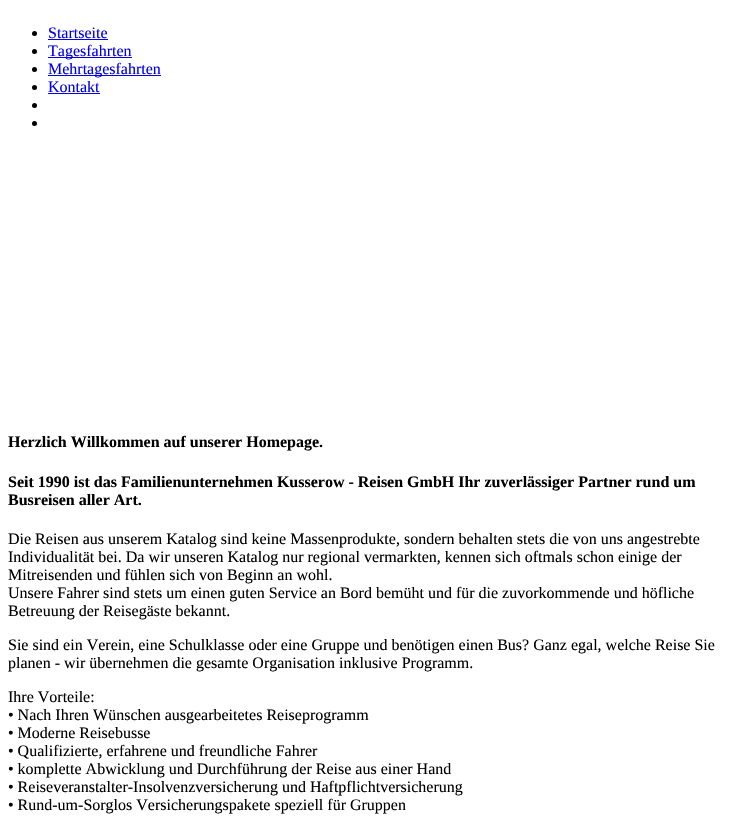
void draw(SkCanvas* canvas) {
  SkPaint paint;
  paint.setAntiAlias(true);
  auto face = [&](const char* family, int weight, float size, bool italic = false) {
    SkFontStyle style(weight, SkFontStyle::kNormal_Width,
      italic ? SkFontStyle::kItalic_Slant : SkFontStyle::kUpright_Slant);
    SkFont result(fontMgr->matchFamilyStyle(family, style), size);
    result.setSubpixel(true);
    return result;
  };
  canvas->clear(0xffffffff);
  paint.setColor(0xff000000);
  canvas->drawCircle(34.5f, 33.5f, 2.5f, paint);
  paint.setColor(0xff0000ee);
  canvas->drawRect(SkRect::MakeXYWH(48, 39, 60, 1), paint);
  paint.setColor(0xff000000);
  canvas->drawCircle(34.5f, 51.5f, 2.5f, paint);
  paint.setColor(0xff0000ee);
  canvas->drawRect(SkRect::MakeXYWH(48, 57, 84, 1), paint);
  paint.setColor(0xff000000);
  canvas->drawCircle(34.5f, 69.5f, 2.5f, paint);
  paint.setColor(0xff0000ee);
  canvas->drawRect(SkRect::MakeXYWH(48, 75, 113, 1), paint);
  paint.setColor(0xff000000);
  canvas->drawCircle(34.5f, 87.5f, 2.5f, paint);
  paint.setColor(0xff0000ee);
  canvas->drawRect(SkRect::MakeXYWH(48, 93, 52, 1), paint);
  paint.setColor(0xff000000);
  canvas->drawCircle(34.5f, 105.5f, 2.5f, paint);
  canvas->drawCircle(34.5f, 123.5f, 2.5f, paint);
  auto f0 = face("Liberation Serif", 400, 16);
  paint.setColor(0xff0000ee);
  {
    const struct { const char* s; float x, y; } items[] = {
      {"Startseite", 48, 38},
      {"Tagesfahrten", 48, 56},
      {"Mehrtagesfahrten", 48, 74},
      {"Kontakt", 48, 92},
    };
    for (auto [s, x, y] : items) {
      canvas->drawString(s, x, y, f0, paint);
    }
  }
  auto f1 = face("Liberation Serif", 700, 16);
  paint.setColor(0xff000000);
  {
    const struct { const char* s; float x, y; } items[] = {
      {"Herzlich Willkommen auf unserer Homepage.", 8, 447},
      {"Seit 1990 ist das Familienunternehmen Kusserow - Reisen GmbH Ihr zuverlässiger Partner rund um", 8, 487},
      {"Busreisen aller Art.", 8, 505},
    };
    for (auto [s, x, y] : items) {
      canvas->drawString(s, x, y, f1, paint);
    }
  }
  {
    const struct { const char* s; float x, y; } items[] = {
      {"Die Reisen aus unserem Katalog sind keine Massenprodukte, sondern behalten stets die von uns angestrebte", 8, 544},
      {"Individualität bei. Da wir unseren Katalog nur regional vermarkten, kennen sich oftmals schon einige der", 8, 562},
      {"Mitreisenden und fühlen sich von Beginn an wohl.", 8, 580},
      {"Unsere Fahrer sind stets um einen guten Service an Bord bemüht und für die zuvorkommende und höfliche", 8, 598},
      {"Betreuung der Reisegäste bekannt.", 8, 616},
      {"Sie sind ein Verein, eine Schulklasse oder eine Gruppe und benötigen einen Bus? Ganz egal, welche Reise Sie", 8, 650},
      {"planen - wir übernehmen die gesamte Organisation inklusive Programm.", 8, 668},
      {"Ihre Vorteile:", 8, 702},
      {"• Nach Ihren Wünschen ausgearbeitetes Reiseprogramm", 8, 720},
      {"• Moderne Reisebusse", 8, 738},
      {"• Qualifizierte, erfahrene und freundliche Fahrer", 8, 756},
      {"• komplette Abwicklung und Durchführung der Reise aus einer Hand", 8, 774},
      {"• Reiseveranstalter-Insolvenzversicherung und Haftpflichtversicherung", 8, 792},
      {"• Rund-um-Sorglos Versicherungspakete speziell für Gruppen", 8, 810},
    };
    for (auto [s, x, y] : items) {
      canvas->drawString(s, x, y, f0, paint);
    }
  }
}
